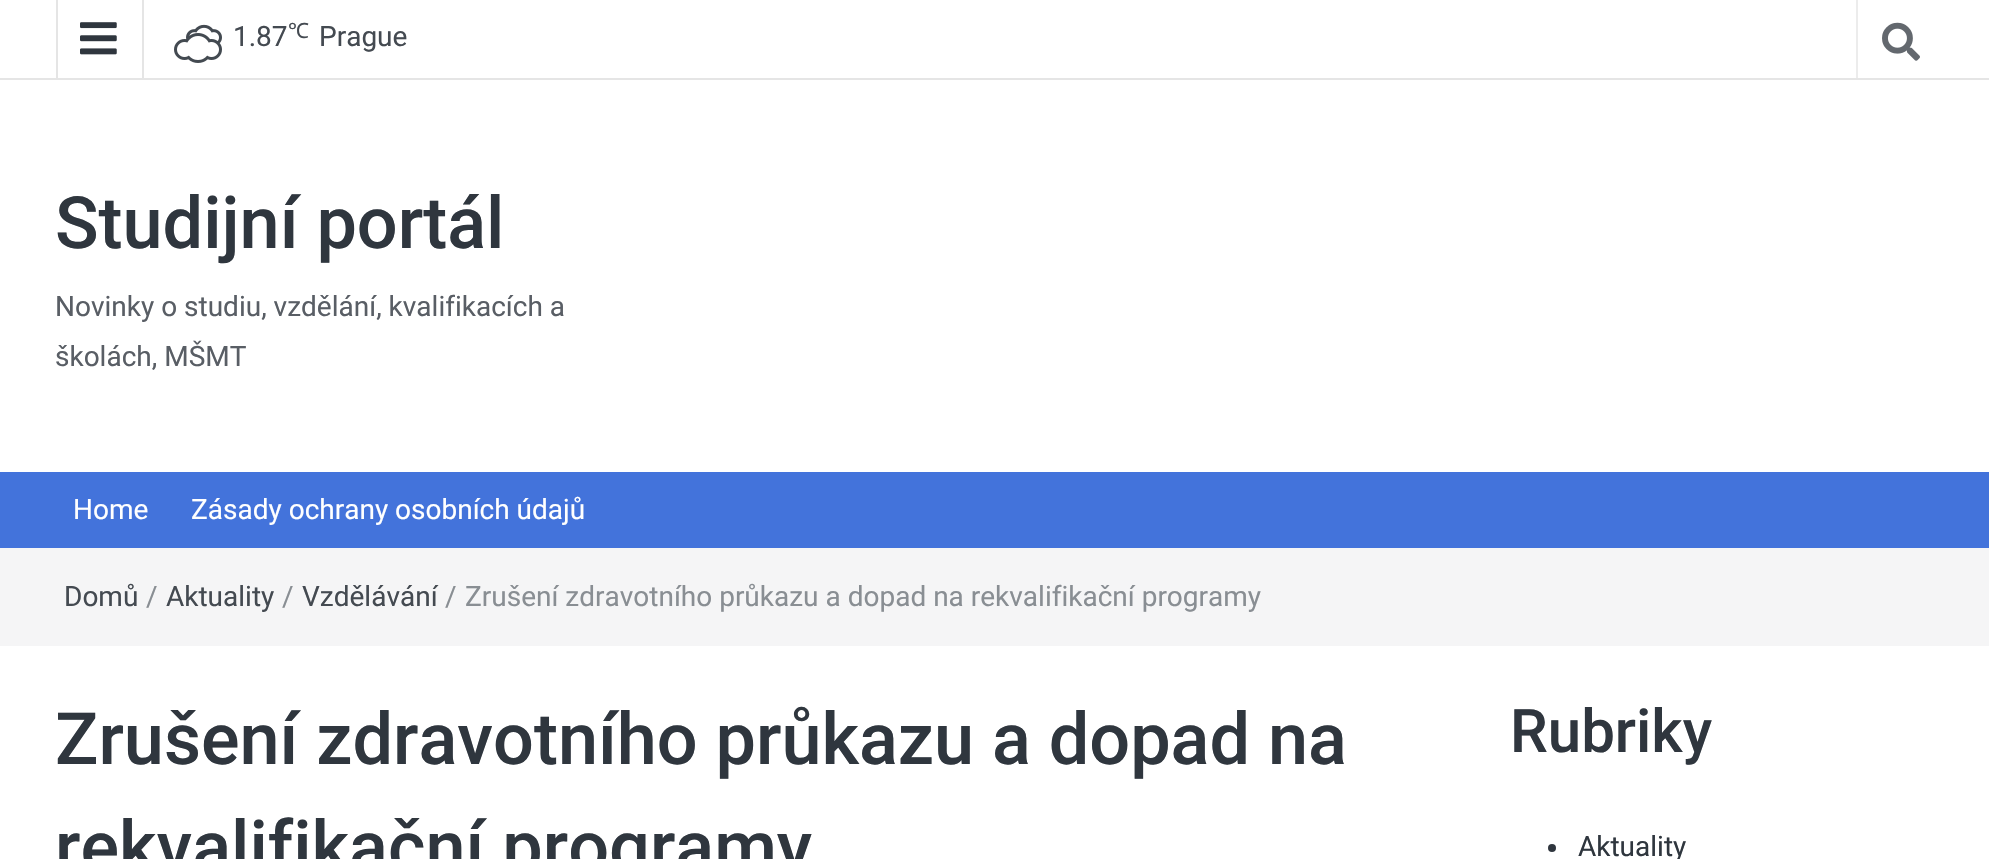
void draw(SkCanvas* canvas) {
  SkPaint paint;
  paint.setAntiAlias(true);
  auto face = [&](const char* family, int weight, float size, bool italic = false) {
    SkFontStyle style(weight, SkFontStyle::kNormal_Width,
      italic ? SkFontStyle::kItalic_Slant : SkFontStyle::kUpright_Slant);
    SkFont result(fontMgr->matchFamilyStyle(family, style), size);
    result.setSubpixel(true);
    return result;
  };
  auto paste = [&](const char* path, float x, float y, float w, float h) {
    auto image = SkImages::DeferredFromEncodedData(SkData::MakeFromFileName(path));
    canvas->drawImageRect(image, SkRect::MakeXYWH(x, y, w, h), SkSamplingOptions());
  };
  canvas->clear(0xffffffff);
  {
    const struct { float x, y, w, h; SkColor color; } items[] = {
      {0, 78, 1989, 2, 0xffe5e5e5},
      {142, 0, 2, 80, 0xffe5e5e5},
      {56, 0, 2, 80, 0xffe5e5e5},
    };
    for (auto [x, y, w, h, color] : items) {
      paint.setColor(color);
      canvas->drawRect(SkRect::MakeXYWH(x, y, w, h), paint);
    }
  }
  paste("img/1.png", 80, 22, 37, 33);
  paste("img/2.png", 174, 24, 48, 39);
  paint.setColor(0xffececec);
  canvas->drawRect(SkRect::MakeXYWH(1856, 0, 2, 78), paint);
  paste("img/3.png", 1882, 22, 38, 39);
  paint.setColor(0xff4373db);
  canvas->drawRect(SkRect::MakeXYWH(0, 472, 1989, 76), paint);
  paint.setColor(0xfff5f5f6);
  canvas->drawRect(SkRect::MakeXYWH(0, 548, 1989, 98), paint);
  paint.setColor(0xff2f363e);
  canvas->drawCircle(1552, 848, 4, paint);
  auto f0 = face("Roboto", 400, 28);
  paint.setColor(0xff444a51);
  canvas->drawString("1.87", 233, 46, f0, paint);
  auto f1 = face("Noto Sans", 400, 21);
  canvas->drawString("℃", 288, 38, f1, paint);
  canvas->drawString("Prague", 319, 46, f0, paint);
  auto f2 = face("Roboto", 500, 72);
  paint.setColor(0xff2f363e);
  canvas->drawString("Studijní portál", 55, 248, f2, paint);
  paint.setColor(0xff595e65);
  canvas->drawString("Novinky o studiu, vzdělání, kvalifikacích a", 55, 316, f0, paint);
  canvas->drawString("školách, MŠMT", 55, 366, f0, paint);
  paint.setColor(0xffffffff);
  canvas->drawString("Home", 73, 519, f0, paint);
  canvas->drawString("Zásady ochrany osobních údajů", 191, 519, f0, paint);
  paint.setColor(0xff444a51);
  canvas->drawString("Domů", 64, 606, f0, paint);
  paint.setColor(0xff898e93);
  canvas->drawString("/", 146, 606, f0, paint);
  paint.setColor(0xff444a51);
  canvas->drawString("Aktuality", 166, 606, f0, paint);
  paint.setColor(0xff898e93);
  canvas->drawString("/", 282, 606, f0, paint);
  paint.setColor(0xff444a51);
  canvas->drawString("Vzdělávání", 302, 606, f0, paint);
  paint.setColor(0xff898e93);
  canvas->drawString("/", 445, 606, f0, paint);
  canvas->drawString("Zrušení zdravotního průkazu a dopad na rekvalifikační programy", 465, 606, f0, paint);
  paint.setColor(0xff2f363e);
  canvas->drawString("Zrušení zdravotního průkazu a dopad na", 55, 764, f2, paint);
  canvas->drawString("rekvalifikační programy", 55, 872, f2, paint);
  auto f3 = face("Roboto", 500, 60);
  canvas->drawString("Rubriky", 1510, 752, f3, paint);
  canvas->drawString("Aktuality", 1578, 856, f0, paint);
}
